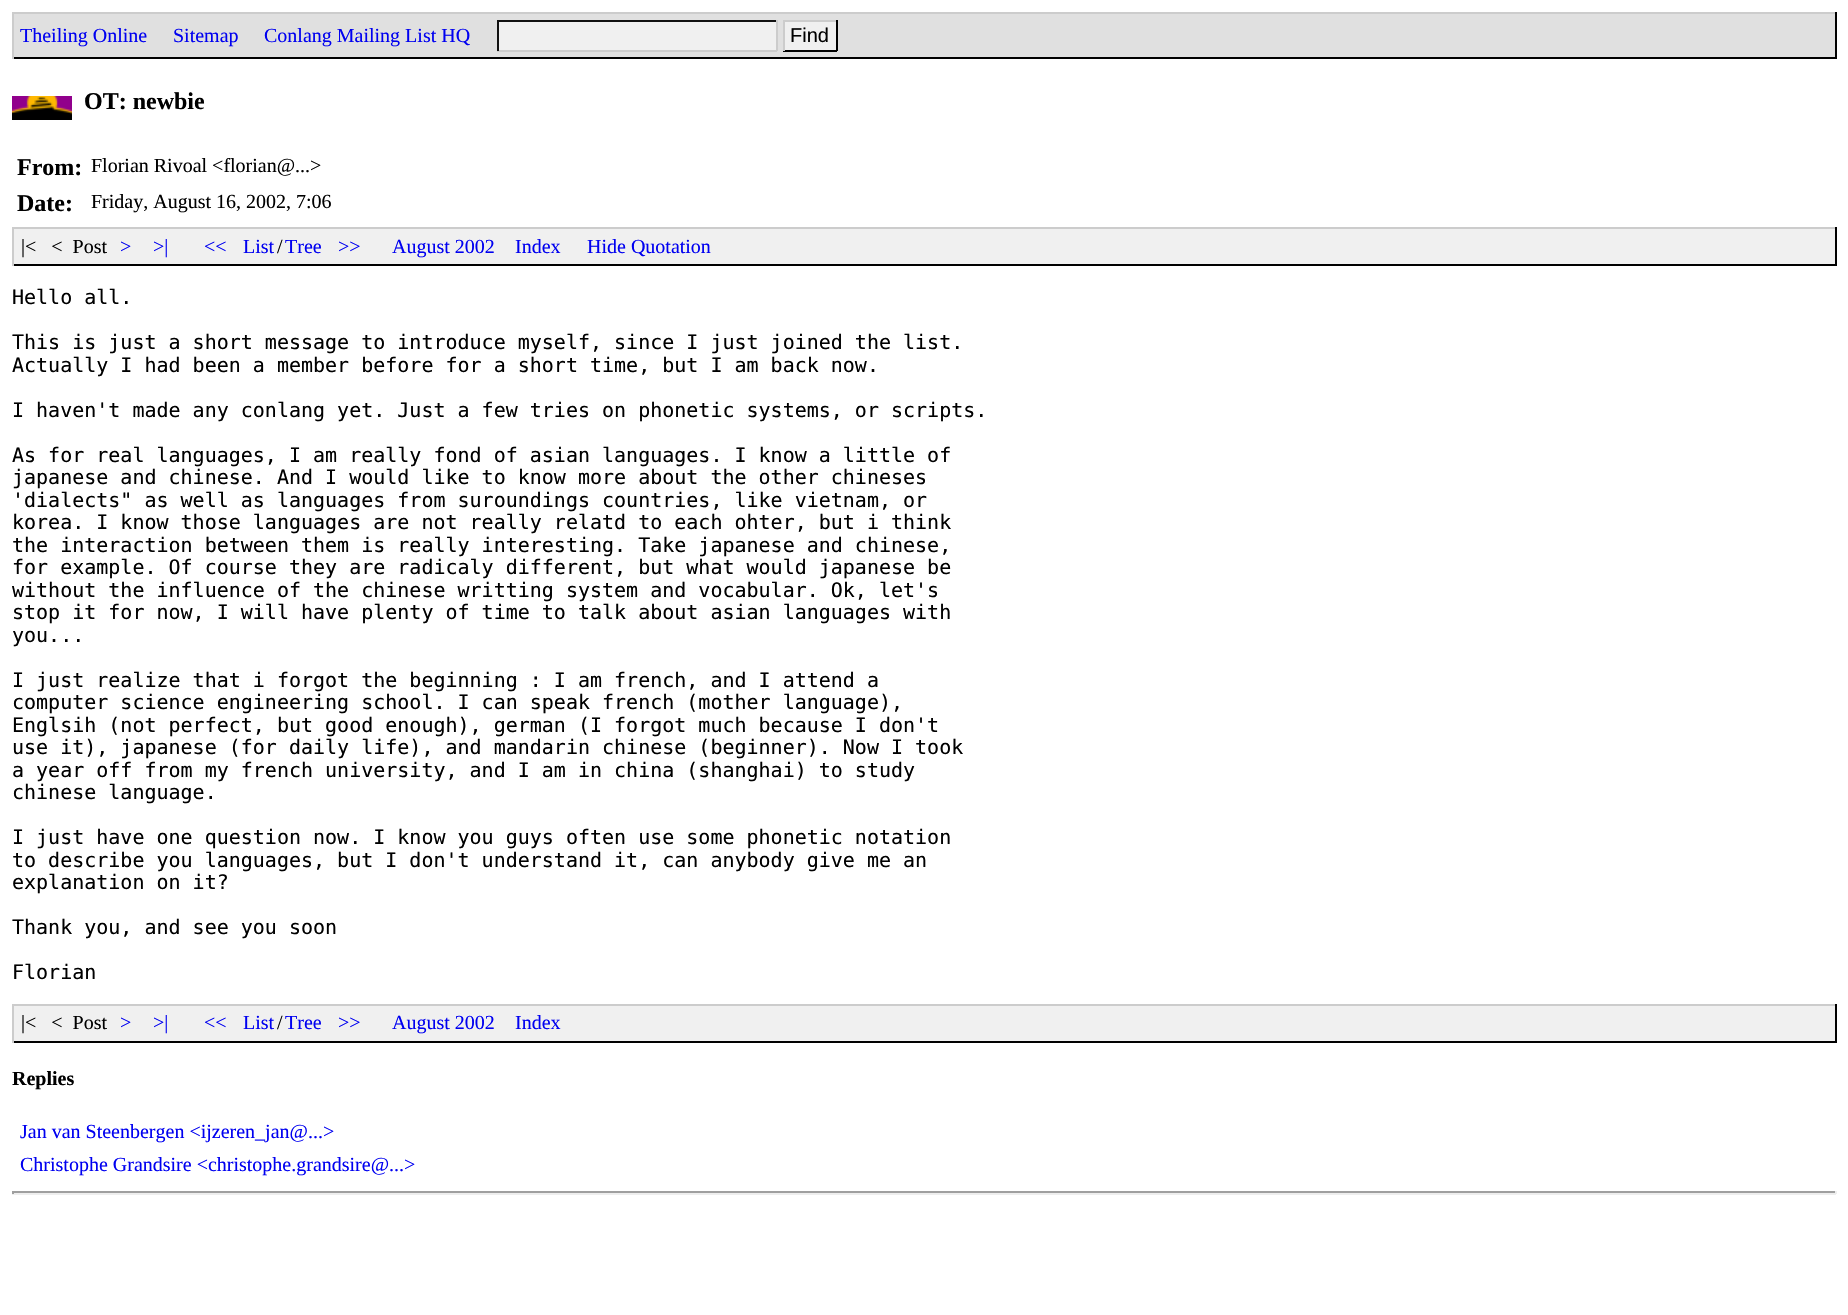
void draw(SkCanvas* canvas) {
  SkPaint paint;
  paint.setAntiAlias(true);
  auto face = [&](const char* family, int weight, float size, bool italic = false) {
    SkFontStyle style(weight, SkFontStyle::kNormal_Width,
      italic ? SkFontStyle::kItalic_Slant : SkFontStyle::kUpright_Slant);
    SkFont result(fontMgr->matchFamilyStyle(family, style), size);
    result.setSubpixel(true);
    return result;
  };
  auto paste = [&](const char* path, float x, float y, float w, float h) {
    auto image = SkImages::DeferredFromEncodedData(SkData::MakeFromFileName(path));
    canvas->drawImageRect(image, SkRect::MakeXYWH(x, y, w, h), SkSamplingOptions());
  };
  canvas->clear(0xffffffff);
  {
    const struct { float x, y, w, h; SkColor color; } items[] = {
      {14, 14, 1821, 43, 0xffe0e0e0},
      {12, 12, 1824, 2, 0xffcccccc},
      {1835, 12, 2, 47, 0xff000000},
      {12, 57, 1824, 2, 0xff000000},
      {12, 12, 2, 47, 0xffcccccc},
      {499, 22, 277, 28, 0xfff0f0f0},
      {497, 20, 280, 2, 0xff111111},
      {776, 20, 2, 31, 0xffcccccc},
      {497, 50, 280, 2, 0xffcccccc},
      {497, 20, 2, 31, 0xff111111},
      {785, 22, 51, 28, 0xfff0f0f0},
      {783, 20, 54, 2, 0xffcccccc},
      {836, 20, 2, 31, 0xff000000},
      {783, 50, 54, 2, 0xff000000},
      {783, 20, 2, 31, 0xffcccccc},
    };
    for (auto [x, y, w, h, color] : items) {
      paint.setColor(color);
      canvas->drawRect(SkRect::MakeXYWH(x, y, w, h), paint);
    }
  }
  paste("img/1.png", 12, 96, 60, 24);
  {
    const struct { float x, y, w, h; SkColor color; } items[] = {
      {14, 229, 1821, 35, 0xfff0f0f0},
      {12, 227, 1824, 2, 0xffcccccc},
      {1835, 227, 2, 39, 0xff000000},
      {12, 264, 1824, 2, 0xff000000},
      {12, 227, 2, 39, 0xffcccccc},
      {14, 1006, 1821, 35, 0xfff0f0f0},
      {12, 1004, 1824, 2, 0xffcccccc},
      {1835, 1004, 2, 39, 0xff000000},
      {12, 1041, 1824, 2, 0xff000000},
      {12, 1004, 2, 39, 0xffcccccc},
      {12, 1191, 1824, 2, 0xff9f9f9f},
      {1835, 1191, 2, 3, 0xffeeeeee},
      {12, 1193, 1824, 2, 0xffeeeeee},
      {12, 1191, 2, 3, 0xff9f9f9f},
    };
    for (auto [x, y, w, h, color] : items) {
      paint.setColor(color);
      canvas->drawRect(SkRect::MakeXYWH(x, y, w, h), paint);
    }
  }
  auto f0 = face("Liberation Serif", 400, 20);
  paint.setColor(0xff0000f0);
  {
    const struct { const char* s; float x, y; } items[] = {
      {"Theiling Online", 20, 42},
      {"Sitemap", 173, 42},
      {"Conlang Mailing List HQ", 264, 42},
    };
    for (auto [s, x, y] : items) {
      canvas->drawString(s, x, y, f0, paint);
    }
  }
  auto f1 = face("Liberation Sans", 400, 20);
  paint.setColor(0xff000000);
  canvas->drawString("Find", 790, 42, f1, paint);
  auto f2 = face("Liberation Serif", 700, 24);
  canvas->drawString("OT: newbie", 84, 109, f2, paint);
  canvas->drawString("From:", 17, 175, f2, paint);
  canvas->drawString("Florian Rivoal <florian@...>", 91, 172, f0, paint);
  canvas->drawString("Date:", 17, 211, f2, paint);
  canvas->drawString("Friday, August 16, 2002, 7:06", 91, 208, f0, paint);
  canvas->drawString("|<   <  Post", 21, 253, f0, paint);
  paint.setColor(0xff0000f0);
  {
    const struct { const char* s; float x, y; } items[] = {
      {">", 120, 253},
      {">|", 153, 253},
      {"<<", 204, 253},
      {"List", 243, 253},
    };
    for (auto [s, x, y] : items) {
      canvas->drawString(s, x, y, f0, paint);
    }
  }
  paint.setColor(0xff000000);
  canvas->drawString("/", 277, 253, f0, paint);
  paint.setColor(0xff0000f0);
  {
    const struct { const char* s; float x, y; } items[] = {
      {"Tree", 285, 253},
      {">>", 338, 253},
      {"August 2002", 392, 253},
      {"Index", 515, 253},
      {"Hide Quotation", 587, 253},
    };
    for (auto [s, x, y] : items) {
      canvas->drawString(s, x, y, f0, paint);
    }
  }
  auto f3 = face("DejaVu Sans Mono", 400, 20);
  paint.setColor(0xff000000);
  {
    const struct { const char* s; float x, y; } items[] = {
      {"Hello all.", 12, 304},
      {"This is just a short message to introduce myself, since I just joined the list.", 12, 349},
      {"Actually I had been a member before for a short time, but I am back now.", 12, 372},
      {"I haven't made any conlang yet. Just a few tries on phonetic systems, or scripts.", 12, 417},
      {"As for real languages, I am really fond of asian languages. I know a little of", 12, 462},
      {"japanese and chinese. And I would like to know more about the other chineses", 12, 484},
      {"'dialects\" as well as languages from suroundings countries, like vietnam, or", 12, 507},
      {"korea. I know those languages are not really relatd to each ohter, but i think", 12, 529},
      {"the interaction between them is really interesting. Take japanese and chinese,", 12, 552},
      {"for example. Of course they are radicaly different, but what would japanese be", 12, 574},
      {"without the influence of the chinese writting system and vocabular. Ok, let's", 12, 597},
      {"stop it for now, I will have plenty of time to talk about asian languages with", 12, 619},
      {"you...", 12, 642},
      {"I just realize that i forgot the beginning : I am french, and I attend a", 12, 687},
      {"computer science engineering school. I can speak french (mother language),", 12, 709},
      {"Englsih (not perfect, but good enough), german (I forgot much because I don't", 12, 732},
      {"use it), japanese (for daily life), and mandarin chinese (beginner). Now I took", 12, 754},
      {"a year off from my french university, and I am in china (shanghai) to study", 12, 777},
      {"chinese language.", 12, 799},
      {"I just have one question now. I know you guys often use some phonetic notation", 12, 844},
      {"to describe you languages, but I don't understand it, can anybody give me an", 12, 867},
      {"explanation on it?", 12, 889},
      {"Thank you, and see you soon", 12, 934},
      {"Florian", 12, 979},
    };
    for (auto [s, x, y] : items) {
      canvas->drawString(s, x, y, f3, paint);
    }
  }
  canvas->drawString("|<   <  Post", 21, 1029, f0, paint);
  paint.setColor(0xff0000f0);
  {
    const struct { const char* s; float x, y; } items[] = {
      {">", 120, 1029},
      {">|", 153, 1029},
      {"<<", 204, 1029},
      {"List", 243, 1029},
    };
    for (auto [s, x, y] : items) {
      canvas->drawString(s, x, y, f0, paint);
    }
  }
  paint.setColor(0xff000000);
  canvas->drawString("/", 277, 1029, f0, paint);
  paint.setColor(0xff0000f0);
  {
    const struct { const char* s; float x, y; } items[] = {
      {"Tree", 285, 1029},
      {">>", 338, 1029},
      {"August 2002", 392, 1029},
      {"Index", 515, 1029},
    };
    for (auto [s, x, y] : items) {
      canvas->drawString(s, x, y, f0, paint);
    }
  }
  auto f4 = face("Liberation Serif", 700, 20);
  paint.setColor(0xff000000);
  canvas->drawString("Replies", 12, 1085, f4, paint);
  paint.setColor(0xff0000f0);
  canvas->drawString("Jan van Steenbergen <ijzeren_jan@...>", 20, 1138, f0, paint);
  canvas->drawString("Christophe Grandsire <christophe.grandsire@...>", 20, 1171, f0, paint);
}
